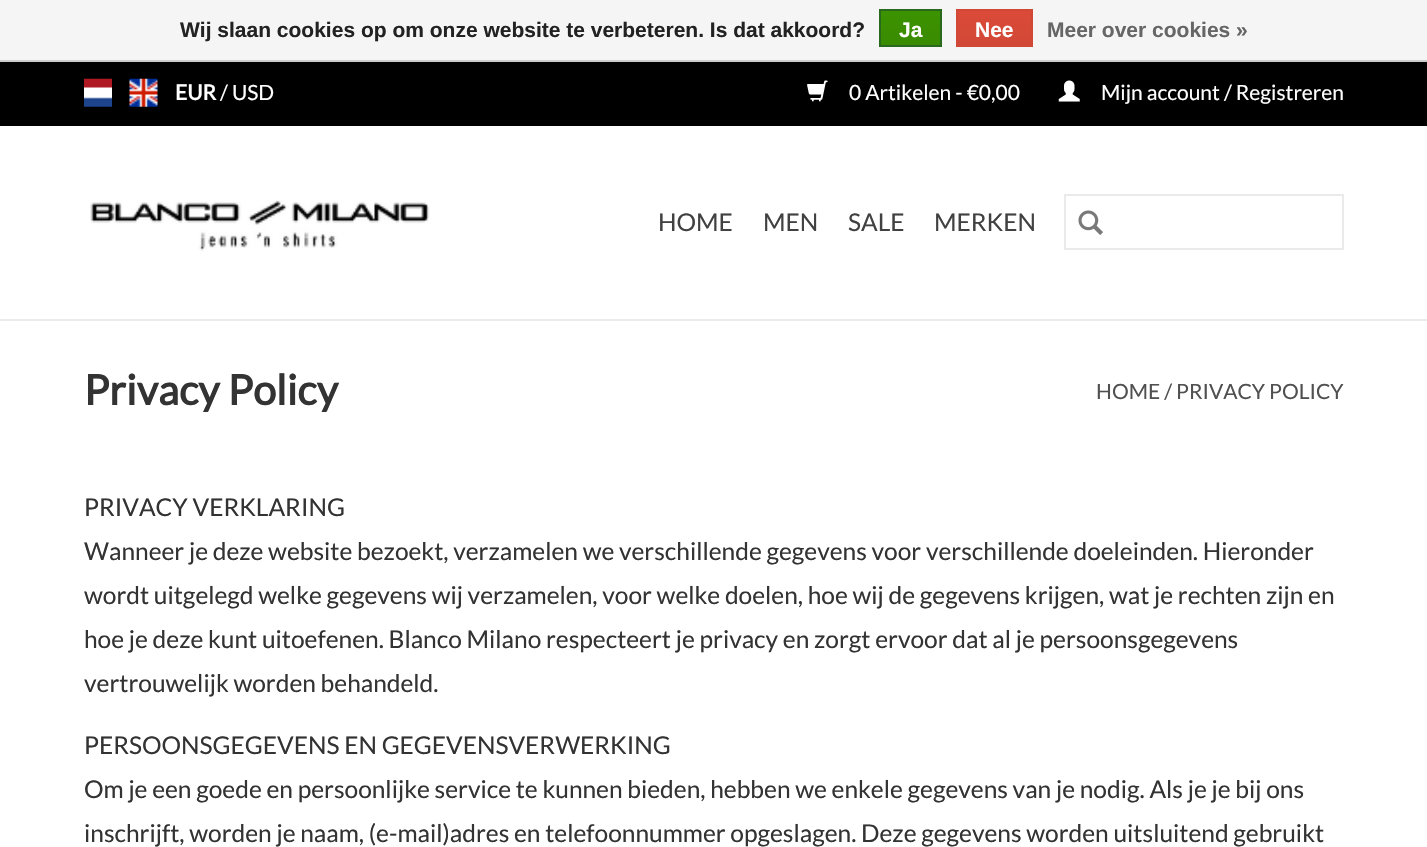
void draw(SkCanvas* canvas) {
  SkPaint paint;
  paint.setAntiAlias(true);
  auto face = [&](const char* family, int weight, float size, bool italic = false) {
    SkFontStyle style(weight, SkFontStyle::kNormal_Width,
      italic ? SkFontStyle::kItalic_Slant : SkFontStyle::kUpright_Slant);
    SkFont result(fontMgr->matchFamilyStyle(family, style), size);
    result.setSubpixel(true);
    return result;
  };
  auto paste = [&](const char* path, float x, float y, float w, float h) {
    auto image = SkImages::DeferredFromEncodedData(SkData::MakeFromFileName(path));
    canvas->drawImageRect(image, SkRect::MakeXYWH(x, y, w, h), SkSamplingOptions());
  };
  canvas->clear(0xffffffff);
  paint.setColor(0xfff5f5f5);
  canvas->drawRect(SkRect::MakeXYWH(0, 0, 1427, 60), paint);
  paint.setColor(0xffcccccc);
  canvas->drawRect(SkRect::MakeXYWH(0, 60, 1427, 2), paint);
  {
    const SkColor colors[] = {0xff3c9300, 0xff398a00};
    const float stops[] = {0, 1};
    const SkPoint ends[] = {{910, 10}, {910, 46}};
    paint.setShader(SkGradientShader::MakeLinear(ends, colors, stops, 2, SkTileMode::kClamp));
    paint.setAlpha(255);
  }
  canvas->drawRect(SkRect::MakeXYWH(881, 11, 59, 34), paint);
  paint.setStroke(true);
  paint.setStrokeWidth(2);
  paint.setShader(nullptr);
  paint.setColor(0xff29691d);
  canvas->drawRect(SkRect::MakeXYWH(880, 10, 61, 36), paint);
  paint.setStroke(false);
  {
    const SkColor colors[] = {0xffdc4a38, 0xffd14836};
    const float stops[] = {0, 1};
    const SkPoint ends[] = {{994, 10}, {994, 46}};
    paint.setShader(SkGradientShader::MakeLinear(ends, colors, stops, 2, SkTileMode::kClamp));
    paint.setAlpha(255);
  }
  canvas->drawRect(SkRect::MakeXYWH(958, 11, 73, 34), paint);
  paint.setStroke(true);
  paint.setShader(nullptr);
  paint.setColor(0xffd14836);
  canvas->drawRect(SkRect::MakeXYWH(957, 10, 75, 36), paint);
  paint.setStroke(false);
  paint.setColor(0xffeaeaea);
  canvas->drawRect(SkRect::MakeXYWH(0, 319, 1427, 2), paint);
  paint.setColor(0xff000000);
  canvas->drawRect(SkRect::MakeXYWH(0, 62, 1427, 64), paint);
  paste("img/1.png", 84, 78, 28, 29);
  paste("img/2.png", 129, 78, 29, 29);
  paste("img/3.png", 807, 80, 21, 22);
  paste("img/4.png", 1058, 80, 22, 22);
  paste("img/5.png", 90, 200, 340, 51);
  paint.setStroke(true);
  paint.setColor(0xffeaeaea);
  canvas->drawRect(SkRect::MakeXYWH(1065, 195, 278, 54), paint);
  paste("img/6.png", 1078, 210, 25, 25);
  auto f0 = face("Liberation Sans", 700, 21);
  paint.setStroke(false);
  paint.setColor(0xff222222);
  canvas->drawString("Wij slaan cookies op om onze website te verbeteren. Is dat akkoord?", 180, 37, f0, paint);
  paint.setColor(0xffffffff);
  canvas->drawString("Ja", 899, 37, f0, paint);
  canvas->drawString("Nee", 975, 37, f0, paint);
  paint.setColor(0xff666666);
  canvas->drawString("Meer over cookies »", 1047, 37, f0, paint);
  auto f1 = face("Lato", 700, 21);
  paint.setColor(0xffffffff);
  canvas->drawString("EUR", 175, 100, f1, paint);
  auto f2 = face("Lato", 400, 21);
  {
    const struct { const char* s; float x, y; } items[] = {
      {"/ USD", 220, 100},
      {"0 Artikelen - €0,00", 849, 100},
      {"Mijn account / Registreren", 1101, 100},
    };
    for (auto [s, x, y] : items) {
      canvas->drawString(s, x, y, f2, paint);
    }
  }
  auto f3 = face("Lato", 400, 24.5f);
  paint.setColor(0xff414141);
  {
    const struct { const char* s; float x, y; } items[] = {
      {"HOME", 658, 231},
      {"MEN", 763, 231},
      {"SALE", 848, 231},
      {"MERKEN", 934, 231},
    };
    for (auto [s, x, y] : items) {
      canvas->drawString(s, x, y, f3, paint);
    }
  }
  auto f4 = face("Lato", 700, 41.5f);
  paint.setColor(0xff333333);
  canvas->drawString("Privacy Policy", 84, 405, f4, paint);
  paint.setColor(0xff505050);
  canvas->drawString("HOME / PRIVACY POLICY", 1096, 399, f2, paint);
  paint.setColor(0xff333333);
  {
    const struct { const char* s; float x, y; } items[] = {
      {"PRIVACY VERKLARING", 84, 516},
      {"Wanneer je deze website bezoekt, verzamelen we verschillende gegevens voor verschillende doeleinden. Hieronder", 84, 560},
      {"wordt uitgelegd welke gegevens wij verzamelen, voor welke doelen, hoe wij de gegevens krijgen, wat je rechten zijn en", 84, 604},
      {"hoe je deze kunt uitoefenen. Blanco Milano respecteert je privacy en zorgt ervoor dat al je persoonsgegevens", 84, 648},
      {"vertrouwelijk worden behandeld.", 84, 692},
      {"PERSOONSGEGEVENS EN GEGEVENSVERWERKING", 84, 754},
      {"Om je een goede en persoonlijke service te kunnen bieden, hebben we enkele gegevens van je nodig. Als je je bij ons", 84, 798},
      {"inschrijft, worden je naam, (e-mail)adres en telefoonnummer opgeslagen. Deze gegevens worden uitsluitend gebruikt", 84, 842},
    };
    for (auto [s, x, y] : items) {
      canvas->drawString(s, x, y, f3, paint);
    }
  }
}
